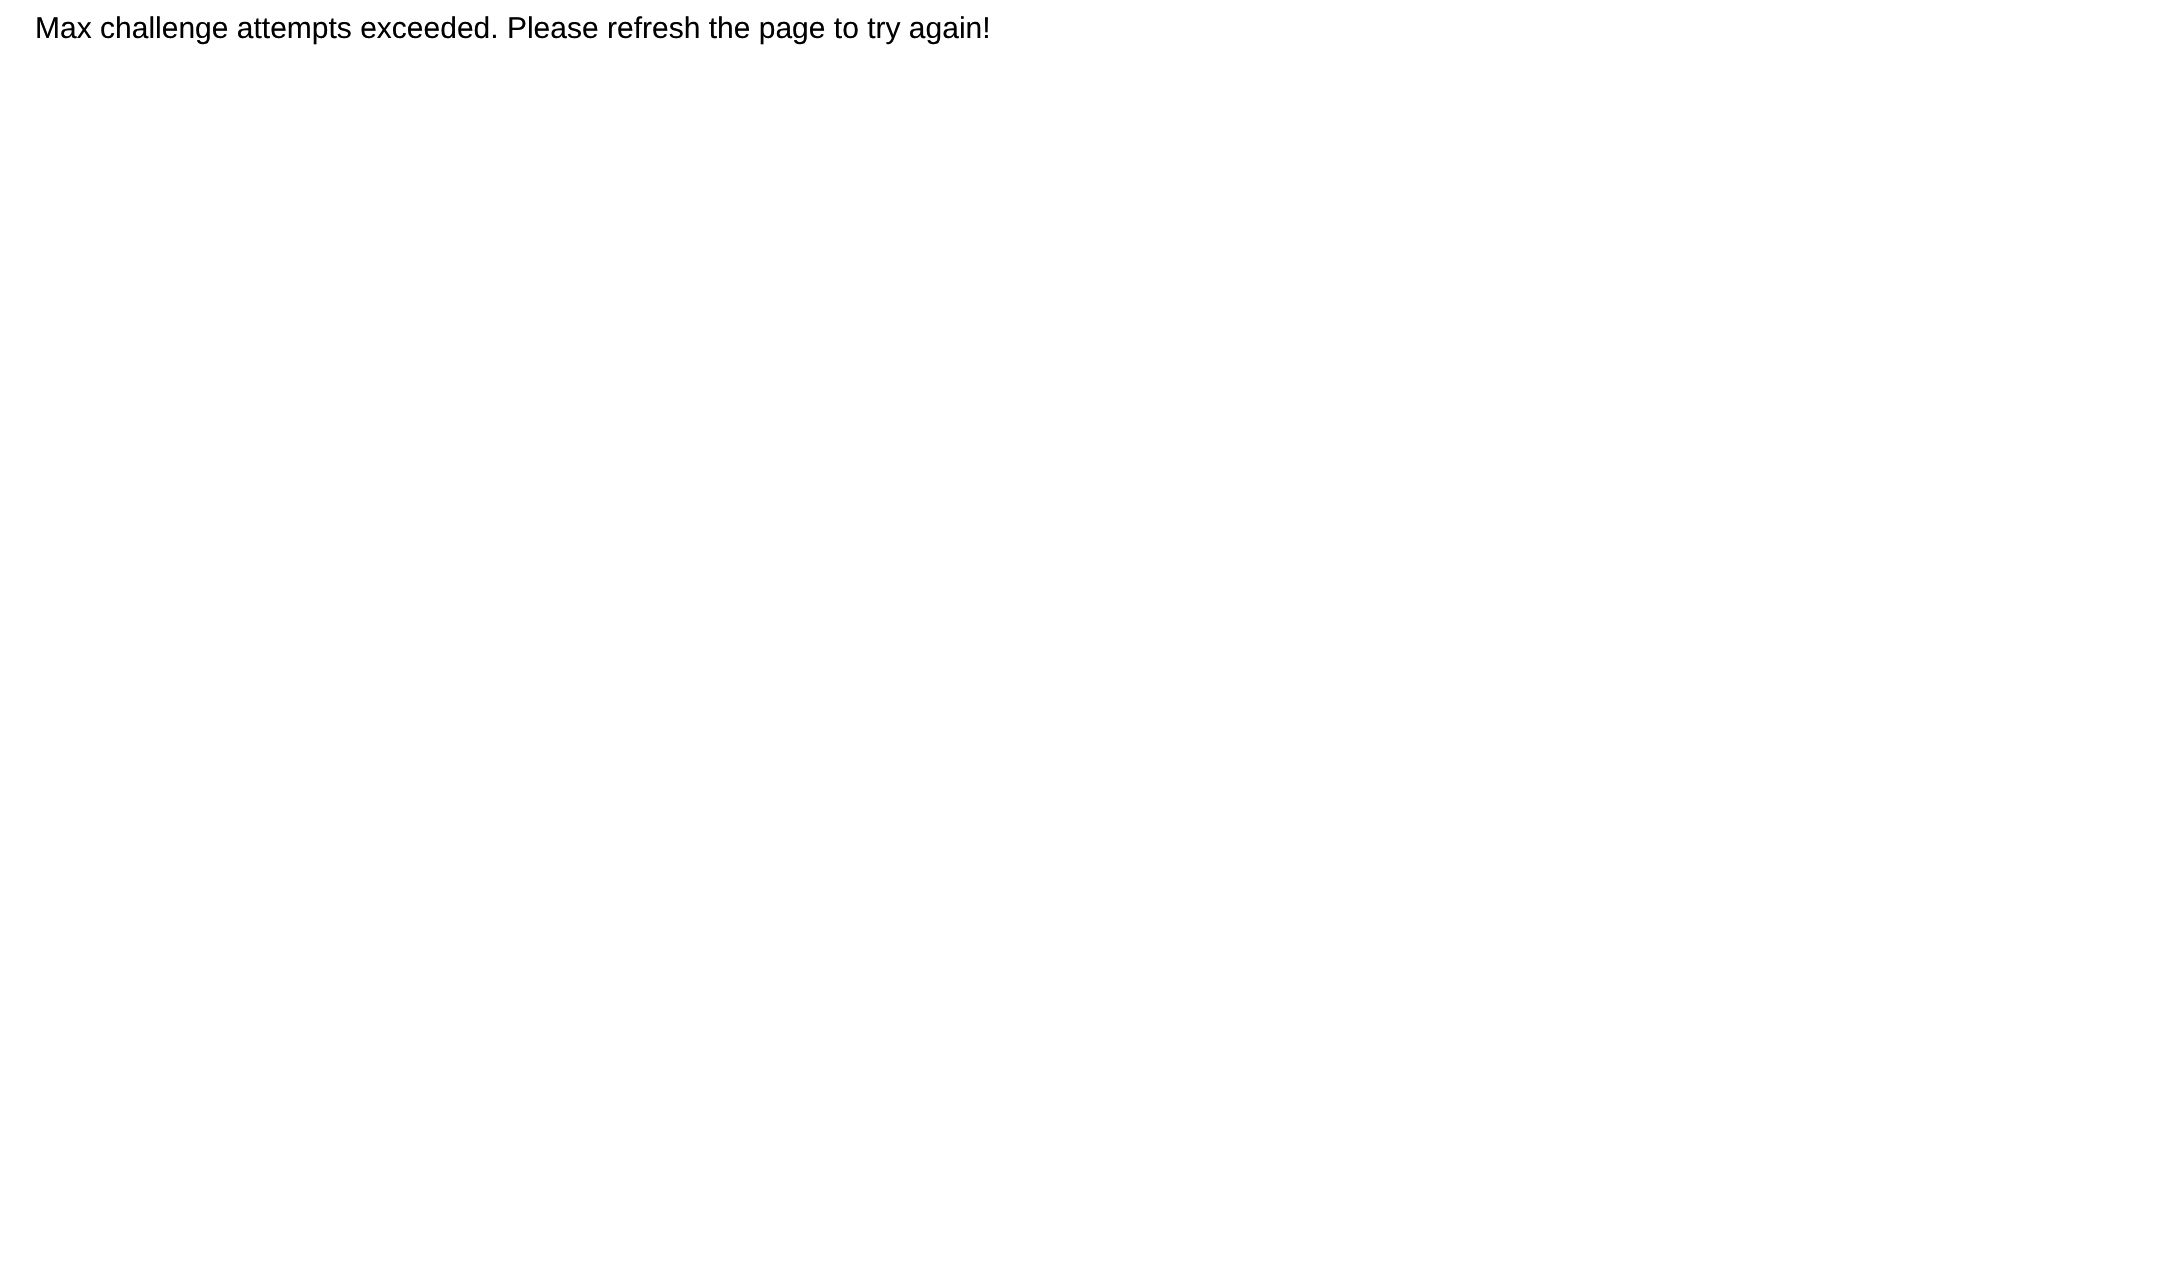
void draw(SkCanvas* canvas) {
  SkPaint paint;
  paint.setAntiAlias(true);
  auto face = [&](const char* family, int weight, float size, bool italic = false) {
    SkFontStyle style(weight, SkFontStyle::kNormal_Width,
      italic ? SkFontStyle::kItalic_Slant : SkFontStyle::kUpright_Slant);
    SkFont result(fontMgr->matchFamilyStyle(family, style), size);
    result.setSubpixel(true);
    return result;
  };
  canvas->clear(0xffffffff);
  auto f0 = face("Liberation Sans", 400, 30);
  paint.setColor(0xff000000);
  canvas->drawString("Max challenge attempts exceeded. Please refresh the page to try again!", 35, 38, f0, paint);
}
